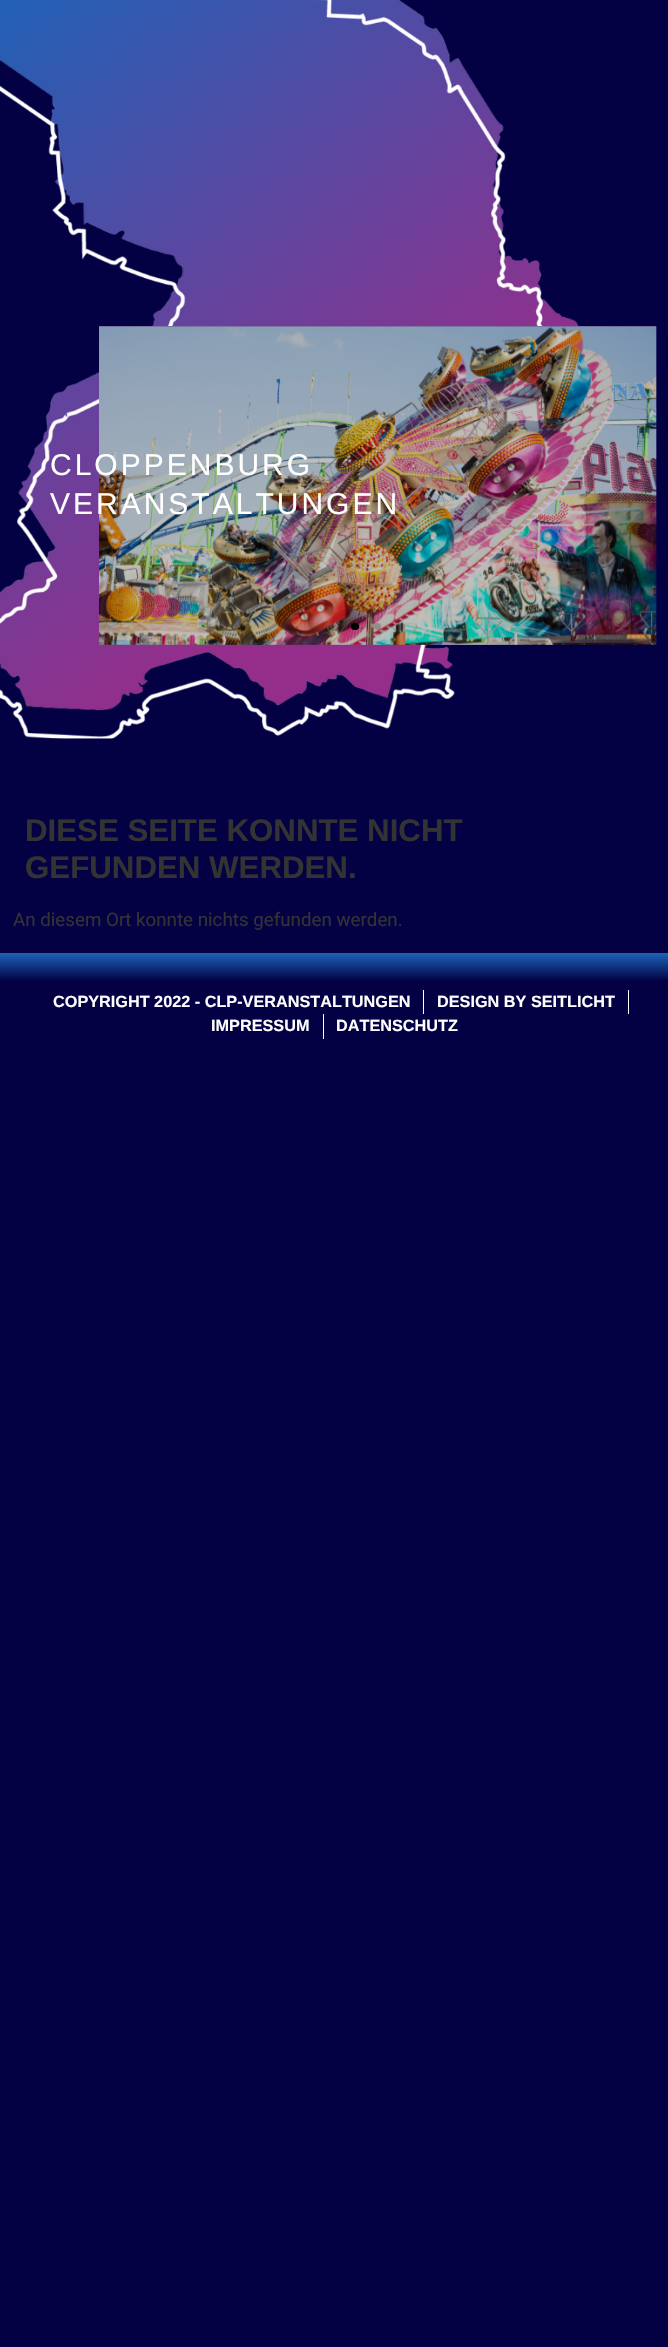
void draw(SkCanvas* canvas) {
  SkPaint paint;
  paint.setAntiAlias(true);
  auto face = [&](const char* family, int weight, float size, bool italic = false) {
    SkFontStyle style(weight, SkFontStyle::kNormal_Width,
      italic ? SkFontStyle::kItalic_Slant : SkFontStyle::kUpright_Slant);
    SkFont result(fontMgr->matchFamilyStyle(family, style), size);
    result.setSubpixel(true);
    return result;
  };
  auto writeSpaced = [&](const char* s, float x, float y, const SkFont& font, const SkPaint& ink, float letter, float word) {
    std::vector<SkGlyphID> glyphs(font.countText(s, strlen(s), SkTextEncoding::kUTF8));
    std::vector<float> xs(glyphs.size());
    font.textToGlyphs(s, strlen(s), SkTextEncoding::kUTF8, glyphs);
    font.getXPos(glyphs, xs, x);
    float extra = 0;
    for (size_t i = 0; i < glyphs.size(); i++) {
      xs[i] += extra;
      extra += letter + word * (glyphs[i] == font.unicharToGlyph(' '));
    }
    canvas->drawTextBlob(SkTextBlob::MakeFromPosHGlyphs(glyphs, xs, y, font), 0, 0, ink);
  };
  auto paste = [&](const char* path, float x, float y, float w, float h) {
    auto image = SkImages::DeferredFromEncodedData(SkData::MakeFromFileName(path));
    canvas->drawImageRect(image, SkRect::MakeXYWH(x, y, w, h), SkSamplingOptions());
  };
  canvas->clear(0xff030043);
  paste("img/1.png", 0, 0, 579, 739);
  paint.setColor(0xff833ca3);
  canvas->drawRect(SkRect::MakeXYWH(99, 326, 557, 319), paint);
  paste("img/2.png", 99, 326, 558, 319);
  paint.setColor(0x3d000000);
  canvas->drawRect(SkRect::MakeXYWH(99, 326, 557, 319), paint);
  paint.setColor(0xff000000);
  canvas->drawRoundRect(SkRect::MakeXYWH(351, 623, 8, 7), 3.5f, 3.5f, paint);
  paint.setColor(0x33000000);
  canvas->drawCircle(377.5f, 626.5f, 3.5f, paint);
  canvas->drawRoundRect(SkRect::MakeXYWH(396, 623, 8, 7), 3.5f, 3.5f, paint);
  {
    const SkColor colors[] = {0xff030043, 0xff1c63b8};
    const float stops[] = {0.77f, 1};
    const SkPoint ends[] = {{334, 1076}, {334, 953}};
    paint.setShader(SkGradientShader::MakeLinear(ends, colors, stops, 2, SkTileMode::kClamp));
    paint.setAlpha(255);
  }
  canvas->drawRect(SkRect::MakeXYWH(0, 953, 668, 28), paint);
  paint.setShader(nullptr);
  {
    const struct { float x, y, w, h; SkColor color; } items[] = {
      {423, 990, 1, 24, 0xffffffff},
      {628, 990, 1, 24, 0xffffffff},
      {323, 1014, 1, 25, 0xffffffff},
    };
    for (auto [x, y, w, h, color] : items) {
      paint.setColor(color);
      canvas->drawRect(SkRect::MakeXYWH(x, y, w, h), paint);
    }
  }
  auto f0 = face("Liberation Sans", 400, 30);
  writeSpaced("CLOPPENBURG", 50, 475, f0, paint, 3, 0);
  writeSpaced("VERANSTALTUNGEN", 50, 514, f0, paint, 3, 0);
  auto f1 = face("Liberation Sans", 700, 31.25f);
  paint.setColor(0xff333333);
  canvas->drawString("DIESE SEITE KONNTE NICHT", 25, 841, f1, paint);
  canvas->drawString("GEFUNDEN WERDEN.", 25, 878, f1, paint);
  auto f2 = face("Roboto", 400, 18.75f);
  canvas->drawString("An diesem Ort konnte nichts gefunden werden.", 13, 926, f2, paint);
  auto f3 = face("Liberation Sans", 700, 16.25f);
  paint.setColor(0xffffffff);
  {
    const struct { const char* s; float x, y; } items[] = {
      {"COPYRIGHT 2022 - CLP-VERANSTALTUNGEN", 53, 1007},
      {"DESIGN BY SEITLICHT", 437, 1007},
      {"IMPRESSUM", 211, 1031},
      {"DATENSCHUTZ", 336, 1031},
    };
    for (auto [s, x, y] : items) {
      canvas->drawString(s, x, y, f3, paint);
    }
  }
}
